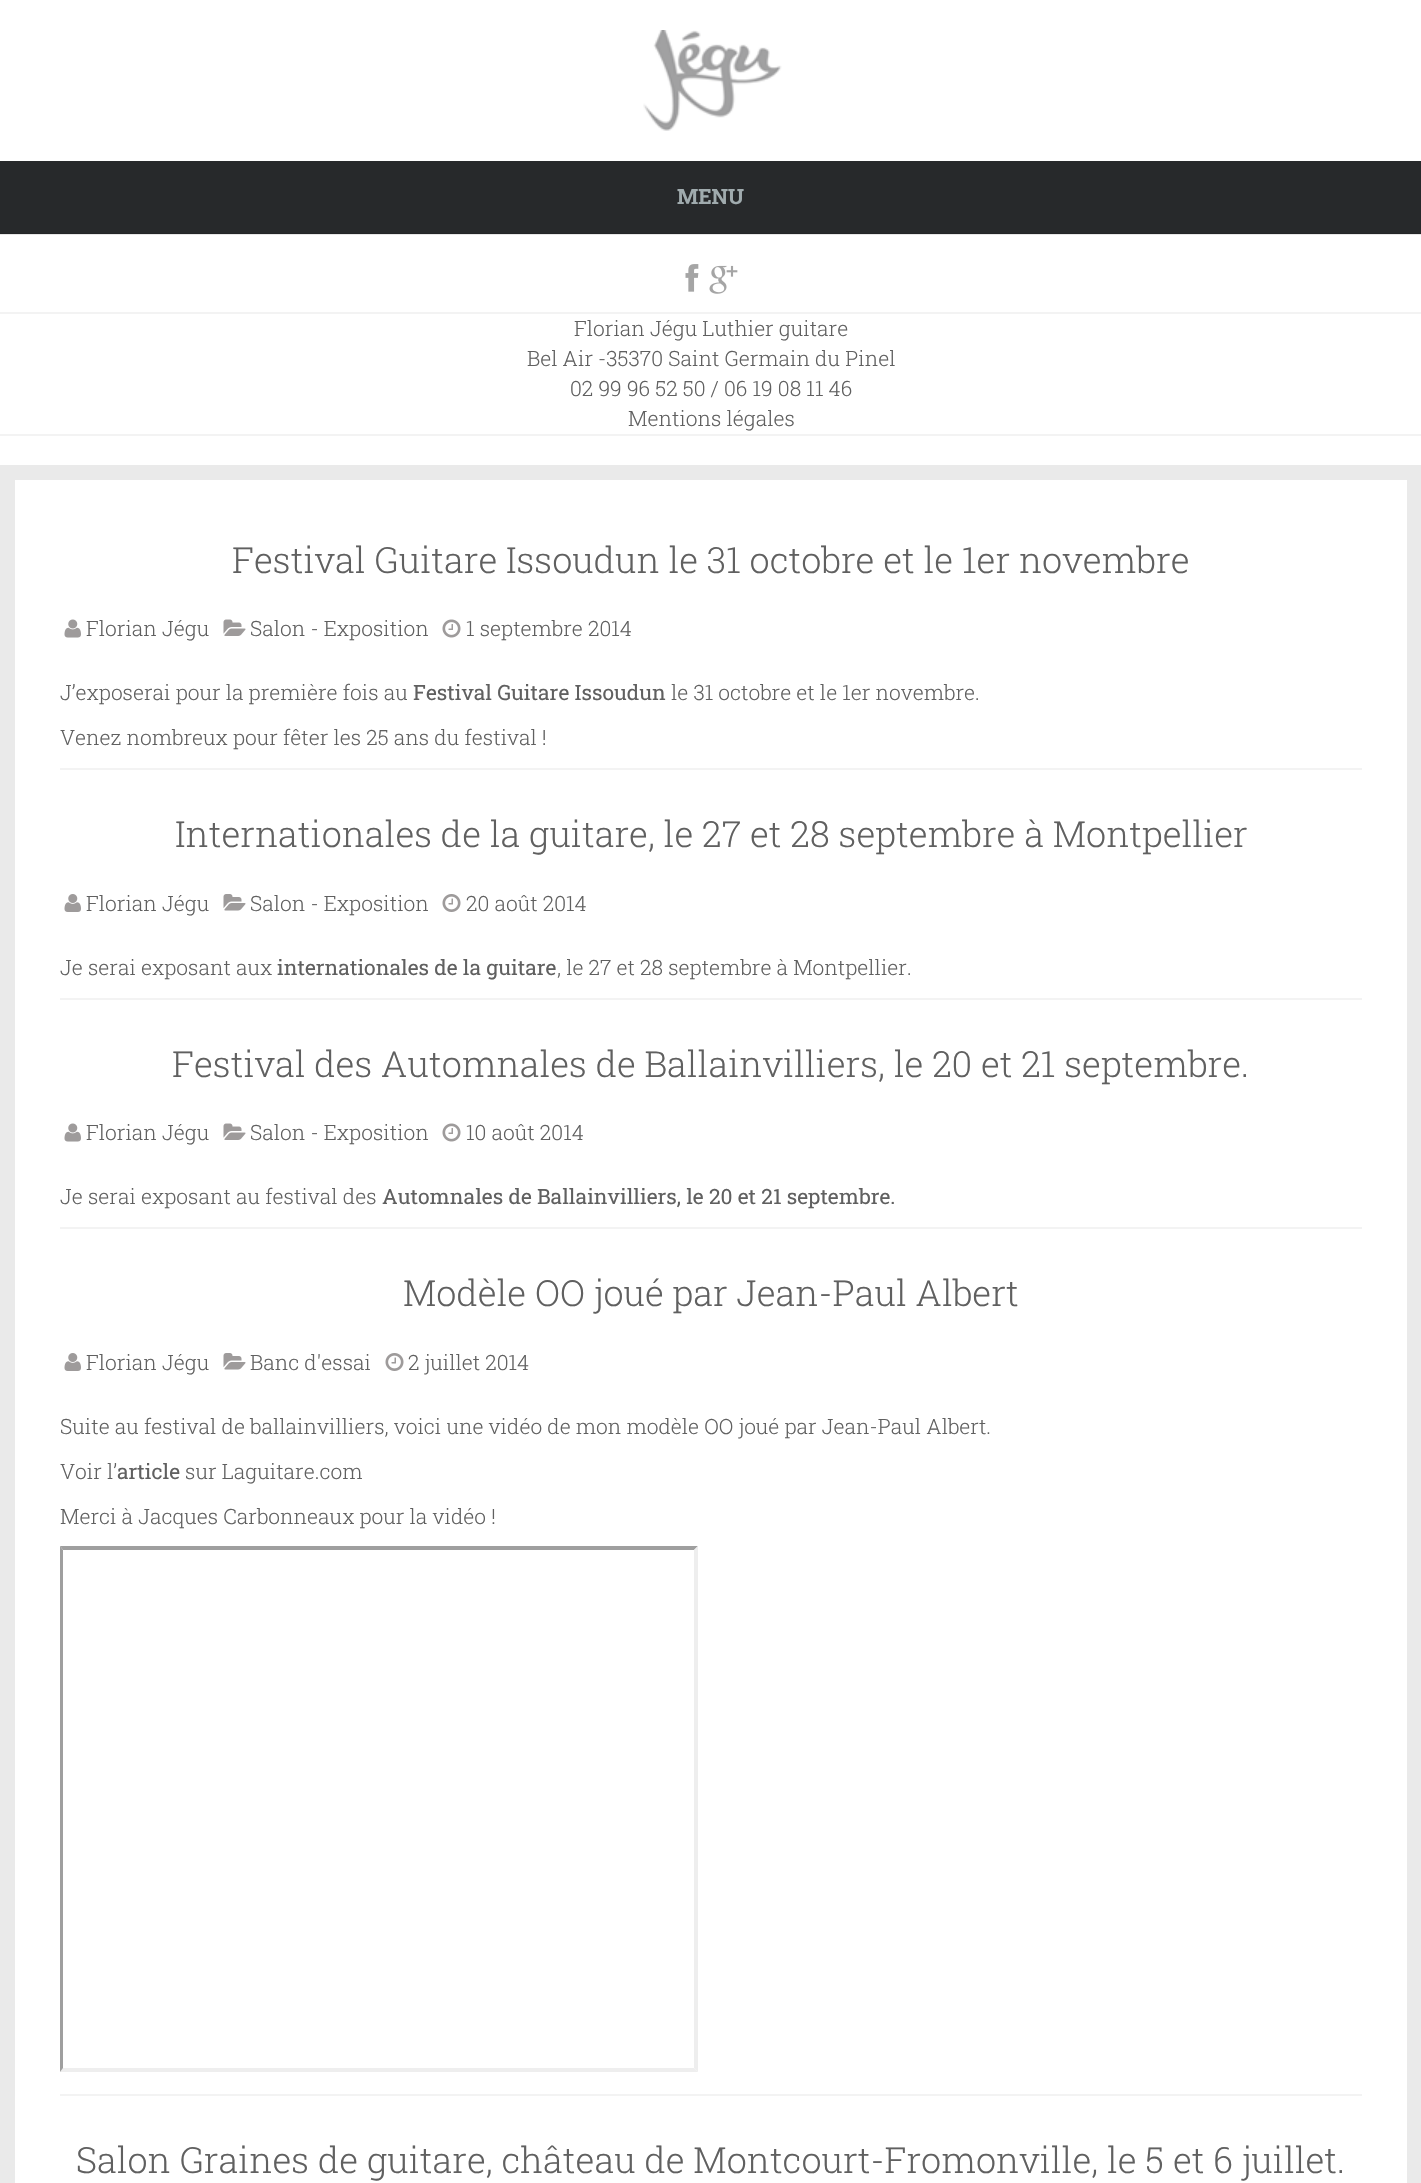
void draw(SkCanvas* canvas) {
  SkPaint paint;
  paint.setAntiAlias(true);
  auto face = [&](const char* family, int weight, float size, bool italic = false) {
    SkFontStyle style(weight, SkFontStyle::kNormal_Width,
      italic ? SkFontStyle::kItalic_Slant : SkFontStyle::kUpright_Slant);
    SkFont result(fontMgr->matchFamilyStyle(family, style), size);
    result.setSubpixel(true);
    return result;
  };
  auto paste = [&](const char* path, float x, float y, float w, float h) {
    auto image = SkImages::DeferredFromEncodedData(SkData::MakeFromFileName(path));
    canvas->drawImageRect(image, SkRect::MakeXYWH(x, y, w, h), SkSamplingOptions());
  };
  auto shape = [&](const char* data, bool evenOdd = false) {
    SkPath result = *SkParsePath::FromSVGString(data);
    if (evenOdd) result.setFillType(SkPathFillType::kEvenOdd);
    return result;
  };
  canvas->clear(0xffeaeaea);
  paint.setColor(0xffffffff);
  canvas->drawRect(SkRect::MakeXYWH(0, 0, 1421, 465), paint);
  paint.setColor(0xffe6e6e6);
  canvas->drawRect(SkRect::MakeXYWH(0, 234, 1421, 1), paint);
  paste("img/1.png", 643, 30, 139, 101);
  {
    const struct { float x, y, w, h; SkColor color; } items[] = {
      {0, 161, 1421, 72, 0xff27292b},
      {0, 233, 1421, 1, 0xff232527},
      {0, 312, 1421, 2, 0xfff3f3f3},
    };
    for (auto [x, y, w, h, color] : items) {
      paint.setColor(color);
      canvas->drawRect(SkRect::MakeXYWH(x, y, w, h), paint);
    }
  }
  paste("img/2.png", 685, 264, 14, 28);
  paste("img/3.png", 709, 265, 29, 29);
  canvas->drawRect(SkRect::MakeXYWH(0, 434, 1421, 2), paint);
  paint.setColor(0xffffffff);
  canvas->drawRect(SkRect::MakeXYWH(15, 480, 1392, 1703), paint);
  paste("img/4.png", 64, 619, 17, 19);
  paste("img/5.png", 223, 619, 23, 17);
  paste("img/6.png", 442, 619, 19, 19);
  paint.setColor(0xfff3f3f3);
  canvas->drawRect(SkRect::MakeXYWH(60, 768, 1302, 2), paint);
  paste("img/7.png", 64, 894, 17, 18);
  paste("img/8.png", 223, 894, 23, 17);
  paste("img/9.png", 442, 894, 19, 18);
  canvas->drawRect(SkRect::MakeXYWH(60, 998, 1302, 2), paint);
  paste("img/4.png", 64, 1123, 17, 19);
  paste("img/5.png", 223, 1123, 23, 17);
  paste("img/6.png", 442, 1123, 19, 19);
  canvas->drawRect(SkRect::MakeXYWH(60, 1227, 1302, 2), paint);
  paste("img/7.png", 64, 1353, 17, 18);
  paste("img/8.png", 223, 1353, 23, 17);
  paste("img/9.png", 385, 1353, 19, 18);
  canvas->drawRect(SkRect::MakeXYWH(60, 2094, 1302, 2), paint);
  paint.setColor(0xff9f9f9f);
  canvas->drawPath(shape("M60 1546H698L694 1550H63Z"), paint);
  paint.setColor(0xffeeeeee);
  canvas->drawPath(shape("M698 1546V2072L694 2068V1550Z"), paint);
  canvas->drawPath(shape("M698 2072H60L63 2068H694Z"), paint);
  paint.setColor(0xff9f9f9f);
  canvas->drawPath(shape("M60 2072V1546L63 1550V2068Z"), paint);
  auto f0 = face("Roboto Slab", 700, 21);
  paint.setColor(0xffa0abae);
  canvas->drawString("MENU", 677, 204, f0, paint);
  auto f1 = face("Roboto Slab", 300, 21);
  paint.setColor(0xff606060);
  {
    const struct { const char* s; float x, y; } items[] = {
      {"Florian Jégu Luthier guitare", 574, 336},
      {"Bel Air -35370 Saint Germain du Pinel", 527, 366},
      {"02 99 96 52 50 / 06 19 08 11 46", 570, 396},
      {"Mentions légales", 628, 426},
    };
    for (auto [s, x, y] : items) {
      canvas->drawString(s, x, y, f1, paint);
    }
  }
  auto f2 = face("Roboto Slab", 300, 36);
  canvas->drawString("Festival Guitare Issoudun le 31 octobre et le 1er novembre", 232, 573, f2, paint);
  {
    const struct { const char* s; float x, y; } items[] = {
      {"Florian Jégu", 86, 636},
      {"Salon - Exposition", 250, 636},
      {"1 septembre 2014", 466, 636},
      {"J’exposerai pour la première fois au", 60, 700},
    };
    for (auto [s, x, y] : items) {
      canvas->drawString(s, x, y, f1, paint);
    }
  }
  auto f3 = face("Roboto Slab", 400, 21);
  canvas->drawString("Festival Guitare Issoudun", 413, 700, f3, paint);
  canvas->drawString("le 31 octobre et le 1er novembre.", 671, 700, f1, paint);
  canvas->drawString("Venez nombreux pour fêter les 25 ans du festival !", 60, 745, f1, paint);
  canvas->drawString("Internationales de la guitare, le 27 et 28 septembre à Montpellier", 175, 847, f2, paint);
  {
    const struct { const char* s; float x, y; } items[] = {
      {"Florian Jégu", 86, 911},
      {"Salon - Exposition", 250, 911},
      {"20 août 2014", 466, 911},
      {"Je serai exposant aux", 60, 975},
    };
    for (auto [s, x, y] : items) {
      canvas->drawString(s, x, y, f1, paint);
    }
  }
  canvas->drawString("internationales de la guitare", 277, 975, f3, paint);
  canvas->drawString(", le 27 et 28 septembre à Montpellier.", 557, 975, f1, paint);
  canvas->drawString("Festival des Automnales de Ballainvilliers, le 20 et 21 septembre.", 172, 1077, f2, paint);
  {
    const struct { const char* s; float x, y; } items[] = {
      {"Florian Jégu", 86, 1140},
      {"Salon - Exposition", 250, 1140},
      {"10 août 2014", 466, 1140},
      {"Je serai exposant au festival des", 60, 1204},
    };
    for (auto [s, x, y] : items) {
      canvas->drawString(s, x, y, f1, paint);
    }
  }
  canvas->drawString("Automnales de Ballainvilliers, le 20 et 21 septembre.", 382, 1204, f3, paint);
  canvas->drawString("Modèle OO joué par Jean-Paul Albert", 403, 1306, f2, paint);
  {
    const struct { const char* s; float x, y; } items[] = {
      {"Florian Jégu", 86, 1370},
      {"Banc d'essai", 250, 1370},
      {"2 juillet 2014", 408, 1370},
      {"Suite au festival de ballainvilliers, voici une vidéo de mon modèle OO joué par Jean-Paul Albert.", 60, 1434},
      {"Voir l’", 60, 1479},
    };
    for (auto [s, x, y] : items) {
      canvas->drawString(s, x, y, f1, paint);
    }
  }
  canvas->drawString("article", 117, 1479, f3, paint);
  canvas->drawString("sur Laguitare.com", 185, 1479, f1, paint);
  canvas->drawString("Merci à Jacques Carbonneaux pour la vidéo !", 60, 1524, f1, paint);
  canvas->drawString("Salon Graines de guitare, château de Montcourt-Fromonville, le 5 et 6 juillet.", 76, 2173, f2, paint);
}
